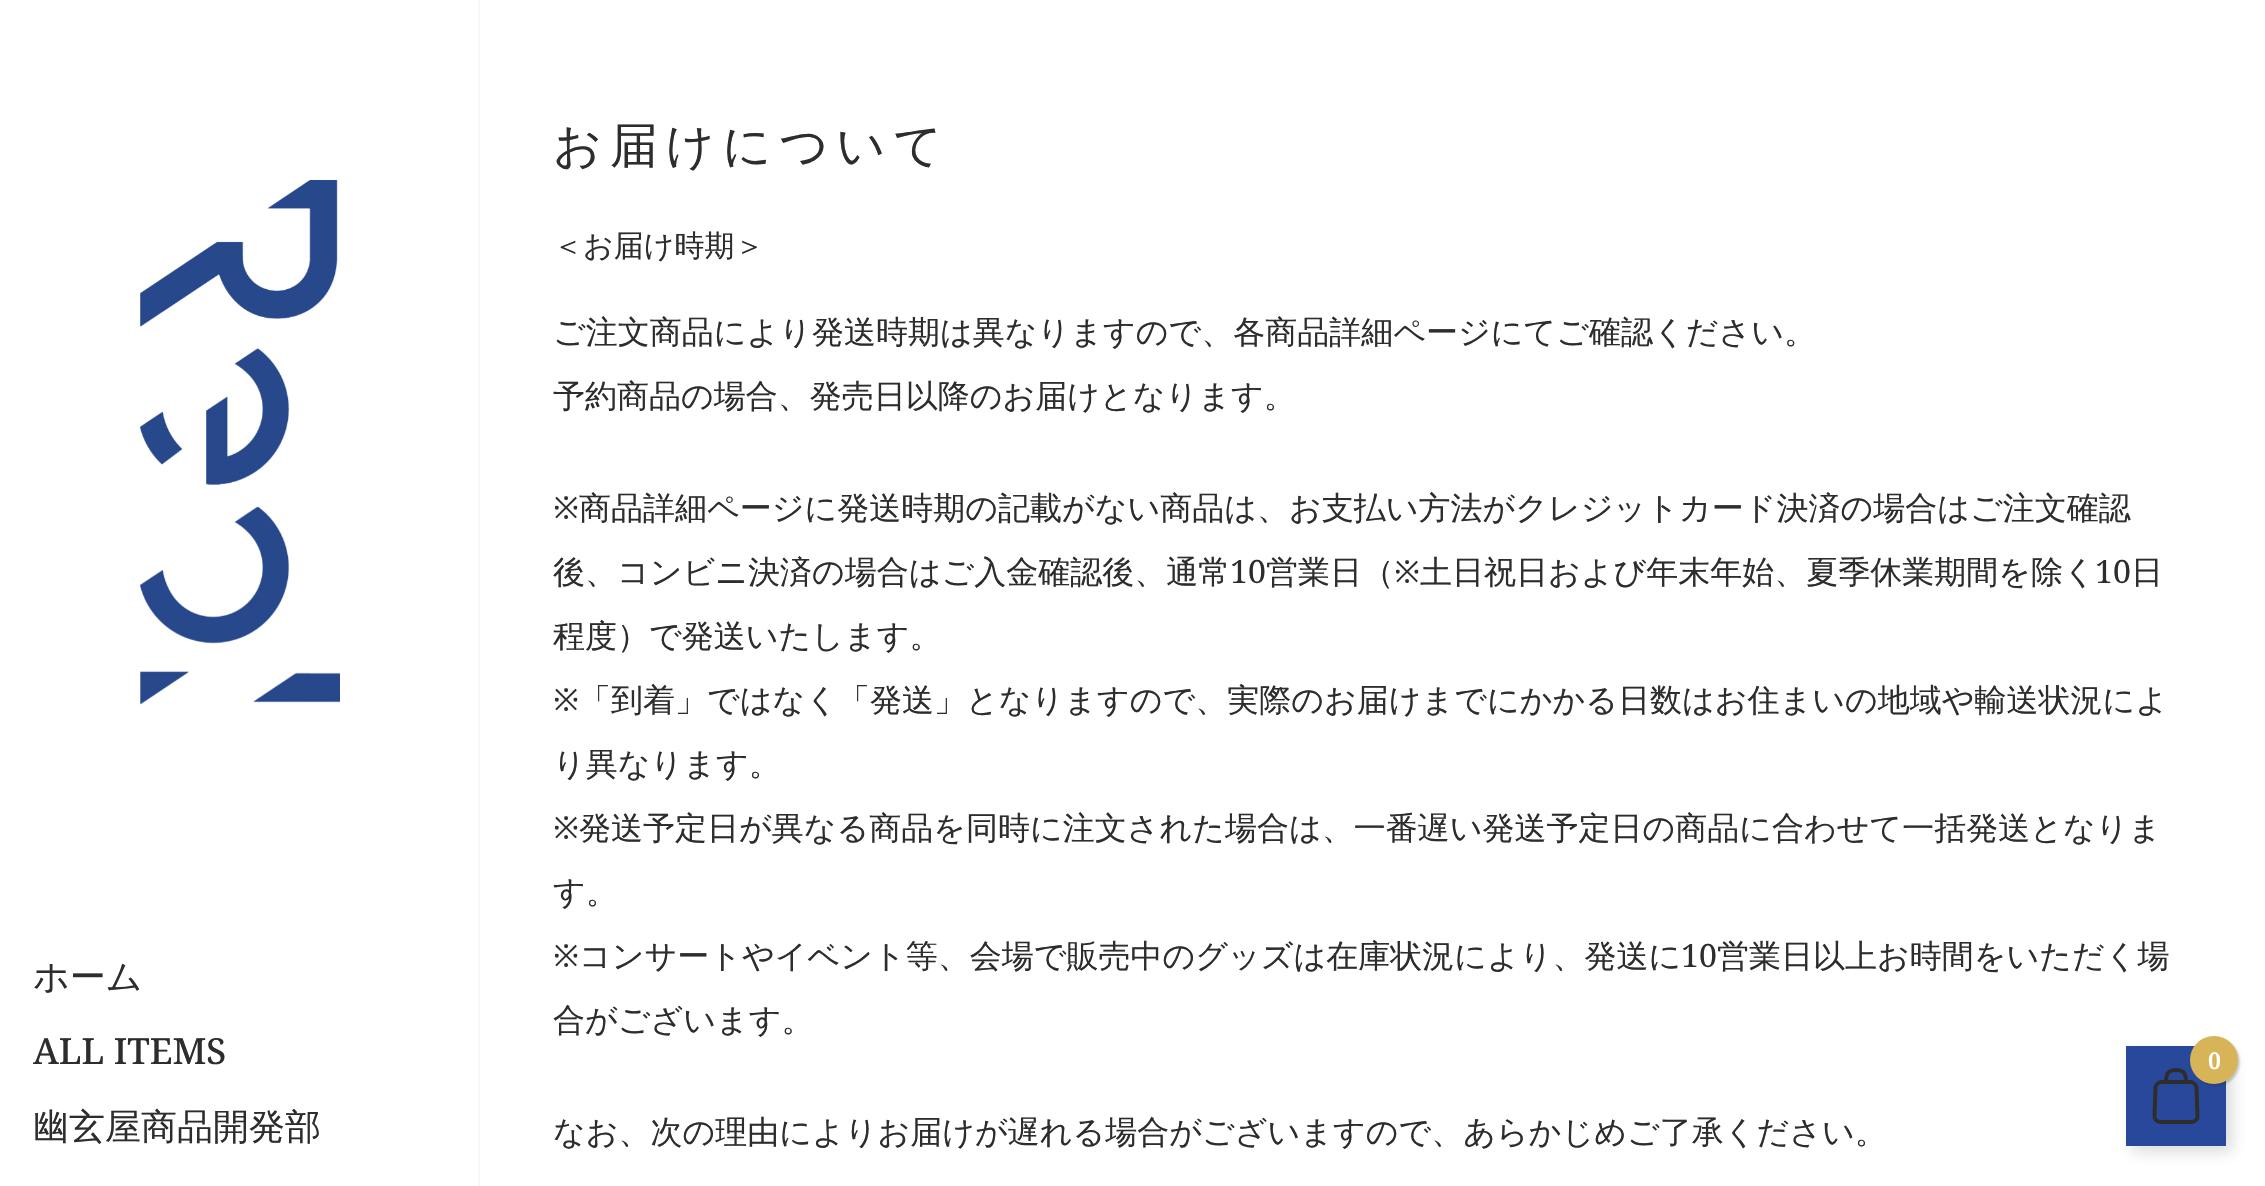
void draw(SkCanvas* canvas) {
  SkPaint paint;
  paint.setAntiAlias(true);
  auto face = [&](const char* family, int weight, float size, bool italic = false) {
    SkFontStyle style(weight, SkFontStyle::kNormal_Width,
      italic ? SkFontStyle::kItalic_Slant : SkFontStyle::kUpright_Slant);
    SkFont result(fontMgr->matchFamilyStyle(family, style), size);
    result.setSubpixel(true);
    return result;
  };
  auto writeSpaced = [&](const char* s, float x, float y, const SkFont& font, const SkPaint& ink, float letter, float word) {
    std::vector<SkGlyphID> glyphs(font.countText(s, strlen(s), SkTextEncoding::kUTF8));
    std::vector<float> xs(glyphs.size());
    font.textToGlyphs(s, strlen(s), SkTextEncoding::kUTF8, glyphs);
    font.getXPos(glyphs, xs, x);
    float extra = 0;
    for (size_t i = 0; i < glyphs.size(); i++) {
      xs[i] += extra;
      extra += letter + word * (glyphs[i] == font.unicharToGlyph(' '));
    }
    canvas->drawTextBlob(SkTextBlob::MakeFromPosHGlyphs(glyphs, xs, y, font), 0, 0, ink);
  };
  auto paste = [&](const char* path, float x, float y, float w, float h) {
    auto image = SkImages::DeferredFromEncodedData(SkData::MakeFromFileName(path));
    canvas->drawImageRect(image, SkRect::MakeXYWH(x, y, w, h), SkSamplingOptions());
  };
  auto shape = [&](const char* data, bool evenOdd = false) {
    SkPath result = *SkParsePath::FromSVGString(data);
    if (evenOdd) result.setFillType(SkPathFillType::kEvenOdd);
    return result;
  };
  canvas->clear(0xffffffff);
  paint.setColor(0xfff7f7f7);
  canvas->drawRect(SkRect::MakeXYWH(478, 0, 2, 1186), paint);
  paste("img/1.png", 140, 180, 200, 525);
  paint.setColor(0x30404040);
  paint.setMaskFilter(SkMaskFilter::MakeBlur(kNormal_SkBlurStyle, 7));
  canvas->drawRect(SkRect::MakeXYWH(2132, 1052, 100, 100), paint);
  paint.setMaskFilter(nullptr);
  paint.setColor(0xff27489b);
  canvas->drawRect(SkRect::MakeXYWH(2126, 1046, 100, 100), paint);
  paint.setStroke(true);
  paint.setStrokeWidth(4);
  paint.setColor(0xff2d2d2d);
  canvas->drawPath(shape("M2166 1082H2161.5C2158.5 1082 2156 1084.5 2155.5 1087.5L2154.5 1115.5C2154 1119 2157 1122 2160.5 1122H2191.5C2195 1122 2198 1119 2197.5 1115.5L2196.5 1087.5C2196 1084.5 2193.5 1082 2190.5 1082H2186M2166 1082C2166 1074.5 2167.5 1070 2176 1070C2184.5 1070 2186 1074.5 2186 1082M2166 1082H2186"), paint);
  paint.setStroke(false);
  paint.setColor(0x38252525);
  paint.setMaskFilter(SkMaskFilter::MakeBlur(kNormal_SkBlurStyle, 1));
  canvas->drawRoundRect(SkRect::MakeXYWH(2192, 1038, 48, 48), 24, 24, paint);
  paint.setMaskFilter(nullptr);
  paint.setColor(0xffd7b457);
  canvas->drawCircle(2214, 1060, 24, paint);
  auto f0 = face("WenQuanYi Zen Hei", 500, 48);
  paint.setColor(0xff2d2d2d);
  writeSpaced("お届けについて", 553, 162, f0, paint, 7.75f, 0);
  auto f1 = face("WenQuanYi Zen Hei", 500, 30);
  canvas->drawString("＜お届け時期＞", 553, 256, f1, paint);
  auto f2 = face("WenQuanYi Zen Hei", 500, 32);
  canvas->drawString("ご注文商品により発送時期は異なりますので、各商品詳細ページにてご確認ください。", 553, 343, f2, paint);
  canvas->drawString("予約商品の場合、発売日以降のお届けとなります。", 553, 407, f2, paint);
  auto f3 = face("Noto Serif", 400, 32);
  canvas->drawString("※", 553, 519, f3, paint);
  canvas->drawString("商品詳細ページに発送時期の記載がない商品は、お支払い方法がクレジットカード決済の場合はご注文確認", 579, 519, f2, paint);
  canvas->drawString("後、コンビニ決済の場合はご入金確認後、通常", 553, 583, f2, paint);
  canvas->drawString("10", 1230, 583, f3, paint);
  canvas->drawString("営業日（", 1266, 583, f2, paint);
  canvas->drawString("※", 1394, 583, f3, paint);
  canvas->drawString("土日祝日および年末年始、夏季休業期間を除く", 1420, 583, f2, paint);
  canvas->drawString("10", 2095, 583, f3, paint);
  canvas->drawString("日", 2131, 583, f2, paint);
  canvas->drawString("程度）で発送いたします。", 553, 647, f2, paint);
  canvas->drawString("※", 553, 711, f3, paint);
  canvas->drawString("「到着」ではなく「発送」となりますので、実際のお届けまでにかかる日数はお住まいの地域や輸送状況によ", 579, 711, f2, paint);
  canvas->drawString("り異なります。", 553, 775, f2, paint);
  canvas->drawString("※", 553, 839, f3, paint);
  canvas->drawString("発送予定日が異なる商品を同時に注文された場合は、一番遅い発送予定日の商品に合わせて一括発送となりま", 579, 839, f2, paint);
  canvas->drawString("す。", 553, 903, f2, paint);
  canvas->drawString("※", 553, 967, f3, paint);
  canvas->drawString("コンサートやイベント等、会場で販売中のグッズは在庫状況により、発送に", 579, 967, f2, paint);
  canvas->drawString("10", 1681, 967, f3, paint);
  {
    const struct { const char* s; float x, y; } items[] = {
      {"営業日以上お時間をいただく場", 1717, 967},
      {"合がございます。", 553, 1031},
      {"なお、次の理由によりお届けが遅れる場合がございますので、あらかじめご了承ください。", 553, 1143},
    };
    for (auto [s, x, y] : items) {
      canvas->drawString(s, x, y, f2, paint);
    }
  }
  auto f4 = face("WenQuanYi Zen Hei", 500, 36);
  canvas->drawString("ホーム", 33, 989, f4, paint);
  auto f5 = face("Noto Serif", 500, 36);
  canvas->drawString("ALL ITEMS", 33, 1064, f5, paint);
  canvas->drawString("幽玄屋商品開発部", 33, 1139, f4, paint);
  auto f6 = face("Noto Serif", 600, 23);
  paint.setColor(0xffffffff);
  canvas->drawString("0", 2208, 1069, f6, paint);
}
